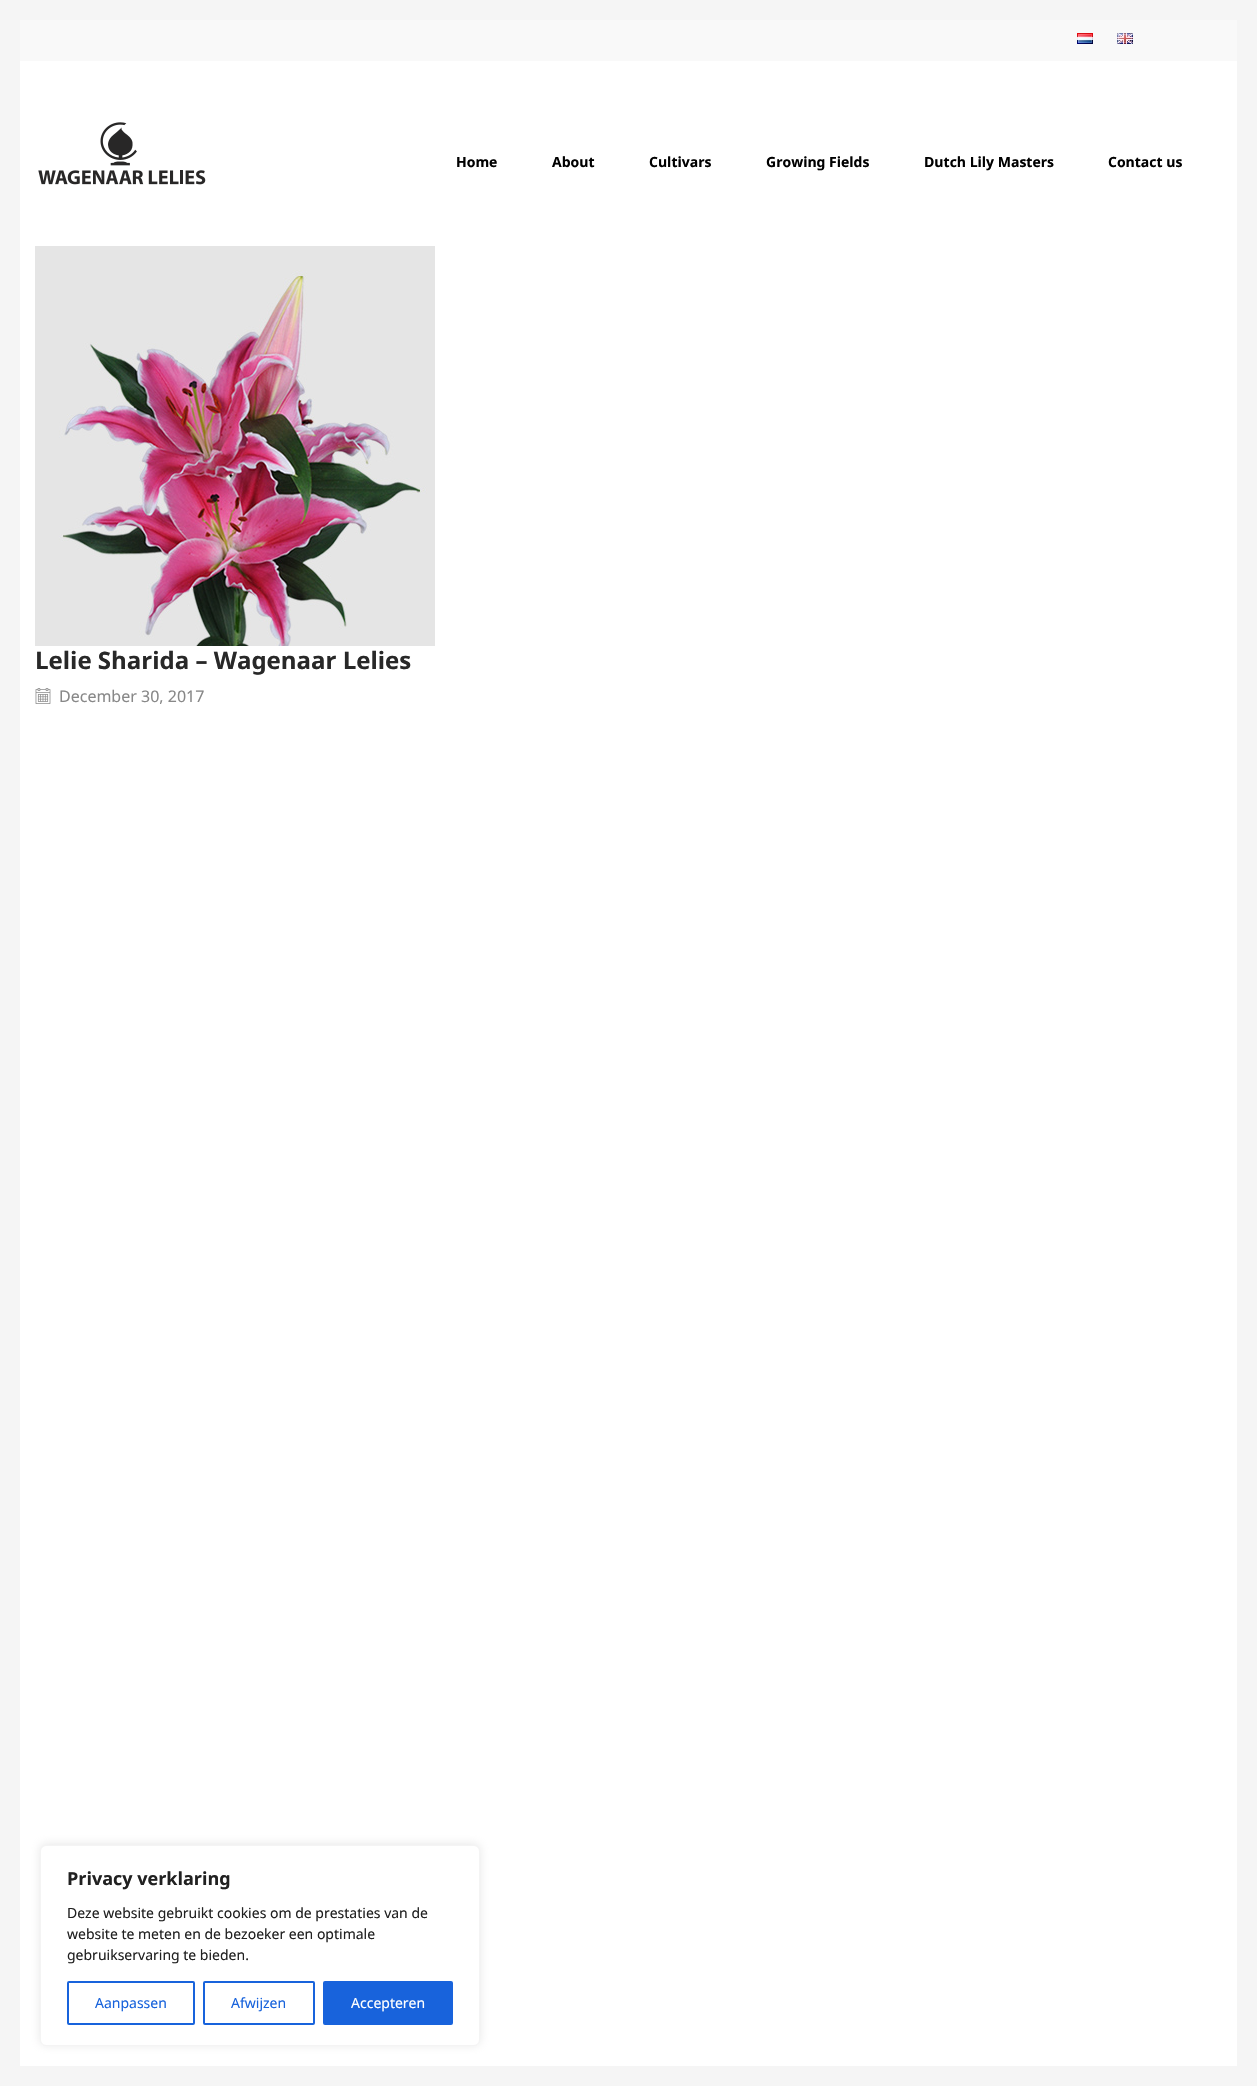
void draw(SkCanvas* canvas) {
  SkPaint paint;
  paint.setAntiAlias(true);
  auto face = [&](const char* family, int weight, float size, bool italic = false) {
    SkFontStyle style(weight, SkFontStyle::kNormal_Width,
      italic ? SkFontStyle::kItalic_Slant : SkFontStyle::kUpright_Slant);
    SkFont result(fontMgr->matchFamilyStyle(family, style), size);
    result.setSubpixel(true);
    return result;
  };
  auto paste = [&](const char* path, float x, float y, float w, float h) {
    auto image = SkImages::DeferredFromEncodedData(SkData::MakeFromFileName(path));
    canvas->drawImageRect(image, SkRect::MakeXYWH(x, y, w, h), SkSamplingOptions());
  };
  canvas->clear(0xffffffff);
  {
    const struct { float x, y, w, h; SkColor color; } items[] = {
      {0, 0, 1237, 20, 0xfff5f5f5},
      {1237, 0, 20, 2066, 0xfff5f5f5},
      {0, 20, 20, 2046, 0xfff5f5f5},
      {20, 20, 1217, 41, 0xfff9f9f9},
    };
    for (auto [x, y, w, h, color] : items) {
      paint.setColor(color);
      canvas->drawRect(SkRect::MakeXYWH(x, y, w, h), paint);
    }
  }
  paste("img/1.png", 1077, 33, 16, 11);
  paste("img/2.png", 1117, 33, 16, 11);
  paste("img/3.png", 38, 122, 168, 63);
  paste("img/4.png", 35, 246, 400, 400);
  paste("img/5.png", 35, 688, 16, 16);
  paint.setColor(0x4dacabab);
  paint.setMaskFilter(SkMaskFilter::MakeBlur(kNormal_SkBlurStyle, 5));
  canvas->drawRoundRect(SkRect::MakeXYWH(40, 1844, 440, 201), 6, 6, paint);
  paint.setMaskFilter(nullptr);
  paint.setColor(0xffffffff);
  canvas->drawRoundRect(SkRect::MakeXYWH(40.5f, 1845.5f, 439, 200), 5.5f, 5.5f, paint);
  paint.setStroke(true);
  paint.setStrokeWidth(1);
  paint.setColor(0xfff4f4f4);
  canvas->drawRoundRect(SkRect::MakeXYWH(40.5f, 1845.5f, 439, 200), 5.5f, 5.5f, paint);
  paint.setStrokeWidth(2);
  paint.setColor(0xff1863dc);
  canvas->drawRoundRect(SkRect::MakeXYWH(68, 1982, 126, 42), 1, 1, paint);
  canvas->drawRoundRect(SkRect::MakeXYWH(204, 1982, 110, 42), 1, 1, paint);
  paint.setStroke(false);
  canvas->drawRoundRect(SkRect::MakeXYWH(324, 1982, 128, 42), 1, 1, paint);
  paint.setStroke(true);
  canvas->drawRoundRect(SkRect::MakeXYWH(324, 1982, 128, 42), 1, 1, paint);
  paint.setStroke(false);
  paint.setColor(0xfff5f5f5);
  canvas->drawRect(SkRect::MakeXYWH(0, 2066, 1257, 20), paint);
  auto f0 = face("Noto Sans", 700, 14);
  paint.setColor(0xff000000);
  {
    const struct { const char* s; float x, y; } items[] = {
      {"Home", 456, 167},
      {"About", 552, 167},
      {"Cultivars", 649, 167},
      {"Growing Fields", 766, 167},
      {"Dutch Lily Masters", 924, 167},
      {"Contact us", 1108, 167},
    };
    for (auto [s, x, y] : items) {
      canvas->drawString(s, x, y, f0, paint);
    }
  }
  auto f1 = face("Noto Sans", 700, 24);
  paint.setColor(0xff282828);
  canvas->drawString("Lelie Sharida – Wagenaar Lelies", 35, 669, f1, paint);
  auto f2 = face("Noto Sans", 400, 16);
  paint.setColor(0xff888888);
  canvas->drawString("December 30, 2017", 59, 702, f2, paint);
  auto f3 = face("Noto Sans", 700, 18);
  paint.setColor(0xff212121);
  canvas->drawString("Privacy verklaring", 67, 1885, f3, paint);
  auto f4 = face("Noto Sans", 400, 14);
  {
    const struct { const char* s; float x, y; } items[] = {
      {"Deze website gebruikt cookies om de prestaties van de", 67, 1918},
      {"website te meten en de bezoeker een optimale", 67, 1939},
      {"gebruikservaring te bieden.", 67, 1960},
    };
    for (auto [s, x, y] : items) {
      canvas->drawString(s, x, y, f4, paint);
    }
  }
  paint.setColor(0xff1863dc);
  canvas->drawString("Aanpassen", 95, 2008, f4, paint);
  canvas->drawString("Afwijzen", 231, 2008, f4, paint);
  paint.setColor(0xffffffff);
  canvas->drawString("Accepteren", 351, 2008, f4, paint);
}
